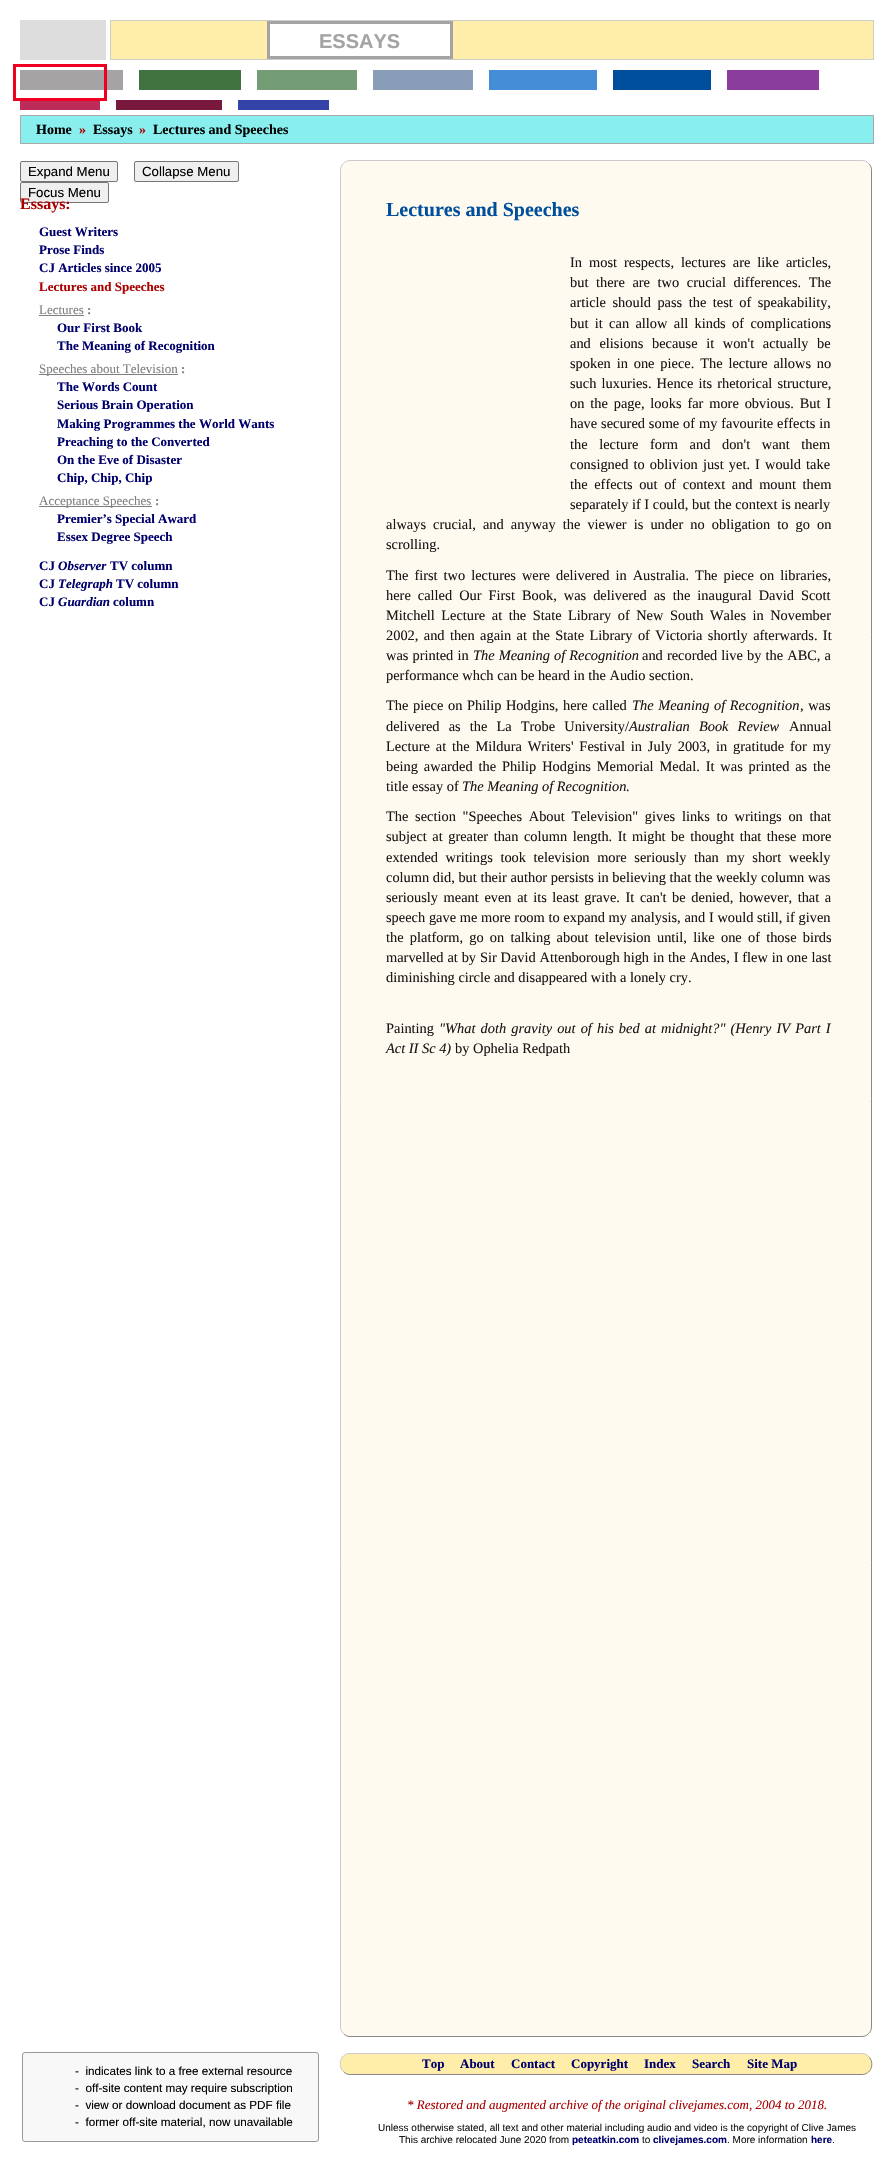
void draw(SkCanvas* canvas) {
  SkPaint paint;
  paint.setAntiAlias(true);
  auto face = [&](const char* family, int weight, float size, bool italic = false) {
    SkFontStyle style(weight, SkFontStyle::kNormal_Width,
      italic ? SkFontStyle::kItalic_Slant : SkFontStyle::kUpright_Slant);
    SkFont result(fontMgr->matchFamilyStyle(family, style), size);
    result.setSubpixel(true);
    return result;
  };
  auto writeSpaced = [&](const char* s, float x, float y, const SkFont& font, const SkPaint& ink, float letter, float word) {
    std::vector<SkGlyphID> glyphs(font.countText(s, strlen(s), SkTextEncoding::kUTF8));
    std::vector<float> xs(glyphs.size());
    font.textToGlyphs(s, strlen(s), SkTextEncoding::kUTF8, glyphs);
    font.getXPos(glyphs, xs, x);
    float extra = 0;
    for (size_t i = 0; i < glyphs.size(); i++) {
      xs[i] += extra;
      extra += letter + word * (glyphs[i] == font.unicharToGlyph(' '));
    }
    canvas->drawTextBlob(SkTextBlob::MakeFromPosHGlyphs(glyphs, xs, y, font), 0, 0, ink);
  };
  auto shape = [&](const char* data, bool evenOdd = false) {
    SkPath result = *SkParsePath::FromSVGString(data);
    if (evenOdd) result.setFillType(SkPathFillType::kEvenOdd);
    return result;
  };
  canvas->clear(0xffffffff);
  paint.setColor(0xffdddddd);
  canvas->drawRect(SkRect::MakeXYWH(20, 20, 86, 40), paint);
  paint.setColor(0xffffeeaa);
  canvas->drawRect(SkRect::MakeXYWH(110.5f, 20.5f, 763, 39), paint);
  paint.setStroke(true);
  paint.setStrokeWidth(1);
  paint.setColor(0xffcccccc);
  canvas->drawRect(SkRect::MakeXYWH(110.5f, 20.5f, 763, 39), paint);
  paint.setStroke(false);
  paint.setColor(0xffffffff);
  canvas->drawRect(SkRect::MakeXYWH(268.5f, 22.5f, 183, 35), paint);
  paint.setStroke(true);
  paint.setStrokeWidth(3);
  paint.setColor(0xffa5a3a4);
  canvas->drawRect(SkRect::MakeXYWH(268.5f, 22.5f, 183, 35), paint);
  paint.setStroke(false);
  canvas->drawRect(SkRect::MakeXYWH(20, 70, 103, 20), paint);
  paint.setStroke(true);
  paint.setColor(0xffee0022);
  canvas->drawRect(SkRect::MakeXYWH(14.5f, 65.5f, 91, 34), paint);
  paint.setStroke(false);
  {
    const struct { float x, y, w, h; SkColor color; } items[] = {
      {139, 70, 102, 20, 0xff417340},
      {257, 70, 100, 20, 0xff749d75},
      {373, 70, 100, 20, 0xff8a9db8},
      {489, 70, 108, 20, 0xff468dd8},
      {613, 70, 98, 20, 0xff004f9c},
      {727, 70, 92, 20, 0xff8a3d9d},
      {20, 101, 80, 9, 0xffbd2b58},
      {116, 100, 106, 10, 0xff78183d},
      {238, 100, 91, 10, 0xff3443a8},
    };
    for (auto [x, y, w, h, color] : items) {
      paint.setColor(color);
      canvas->drawRect(SkRect::MakeXYWH(x, y, w, h), paint);
    }
  }
  paint.setColor(0xff88eeee);
  canvas->drawRect(SkRect::MakeXYWH(20.5f, 115.5f, 853, 28), paint);
  paint.setStroke(true);
  paint.setStrokeWidth(1);
  paint.setColor(0xffaaaaaa);
  canvas->drawRect(SkRect::MakeXYWH(20.5f, 115.5f, 853, 28), paint);
  paint.setStroke(false);
  paint.setColor(0xffefefef);
  canvas->drawRoundRect(SkRect::MakeXYWH(20.5f, 161.5f, 97, 20), 1.5f, 1.5f, paint);
  paint.setStroke(true);
  paint.setColor(0xff767676);
  canvas->drawRoundRect(SkRect::MakeXYWH(20.5f, 161.5f, 97, 20), 1.5f, 1.5f, paint);
  paint.setStroke(false);
  paint.setColor(0xffefefef);
  canvas->drawRoundRect(SkRect::MakeXYWH(134.5f, 161.5f, 104, 20), 1.5f, 1.5f, paint);
  paint.setStroke(true);
  paint.setColor(0xff767676);
  canvas->drawRoundRect(SkRect::MakeXYWH(134.5f, 161.5f, 104, 20), 1.5f, 1.5f, paint);
  paint.setStroke(false);
  paint.setColor(0xffefefef);
  canvas->drawRoundRect(SkRect::MakeXYWH(20.5f, 182.5f, 88, 20), 1.5f, 1.5f, paint);
  paint.setStroke(true);
  paint.setColor(0xff767676);
  canvas->drawRoundRect(SkRect::MakeXYWH(20.5f, 182.5f, 88, 20), 1.5f, 1.5f, paint);
  paint.setStroke(false);
  {
    const struct { float x, y, w, h; SkColor color; } items[] = {
      {39, 315, 45, 1, 0xff808080},
      {39, 374, 139, 1, 0xff808080},
      {39, 506, 113, 1, 0xff808080},
    };
    for (auto [x, y, w, h, color] : items) {
      paint.setColor(color);
      canvas->drawRect(SkRect::MakeXYWH(x, y, w, h), paint);
    }
  }
  paint.setColor(0xfff8f8f8);
  canvas->drawRoundRect(SkRect::MakeXYWH(22.5f, 2052.5f, 296, 89), 2.5f, 2.5f, paint);
  paint.setStroke(true);
  paint.setColor(0xff999999);
  canvas->drawRoundRect(SkRect::MakeXYWH(22.5f, 2052.5f, 296, 89), 2.5f, 2.5f, paint);
  paint.setStroke(false);
  paint.setColor(0xfffffaf0);
  canvas->drawRoundRect(SkRect::MakeXYWH(340, 160, 532, 1877), 10, 10, paint);
  paint.setStroke(true);
  paint.setColor(0xff888888);
  canvas->drawPath(shape("M868.5 163.5C870.5 165 871.5 167.5 871.5 170V2027C871.5 2029.5 870.5 2032 868.5 2033.5C867 2035.5 864.5 2036.5 862 2036.5H350C347.5 2036.5 345 2035.5 343.5 2033.5"), paint);
  paint.setColor(0xffcccccc);
  canvas->drawPath(shape("M343.5 2033.5C341.5 2032 340.5 2029.5 340.5 2027V170C340.5 167.5 341.5 165 343.5 163.5C345 161.5 347.5 160.5 350 160.5H862C864.5 160.5 867 161.5 868.5 163.5"), paint);
  paint.setStroke(false);
  paint.setColor(0xffffeeaa);
  canvas->drawRoundRect(SkRect::MakeXYWH(340, 2053, 532, 22), 10, 10, paint);
  paint.setStroke(true);
  paint.setColor(0xff888888);
  canvas->drawPath(shape("M868.5 2056.5C872 2059.5 872.5 2064.5 871 2068.5C869.5 2072 866 2074.5 862 2074.5H350C347.5 2074.5 345 2073.5 343.5 2071.5"), paint);
  paint.setColor(0xffcccccc);
  canvas->drawPath(shape("M343.5 2071.5C340 2068.5 339.5 2063.5 341 2059.5C342.5 2056 346 2053.5 350 2053.5H862C864.5 2053.5 867 2054.5 868.5 2056.5"), paint);
  auto f0 = face("Liberation Sans", 700, 20);
  paint.setStroke(false);
  paint.setColor(0xffa5a3a4);
  canvas->drawString("ESSAYS", 319, 48, f0, paint);
  auto f1 = face("Liberation Serif", 700, 14);
  paint.setColor(0xff000000);
  canvas->drawString("Home", 36, 134, f1, paint);
  paint.setColor(0xffaa0000);
  canvas->drawString("»", 79, 134, f1, paint);
  paint.setColor(0xff000000);
  canvas->drawString("Essays", 93, 134, f1, paint);
  paint.setColor(0xffaa0000);
  canvas->drawString("»", 139, 134, f1, paint);
  paint.setColor(0xff000000);
  canvas->drawString("Lectures and Speeches", 153, 134, f1, paint);
  auto f2 = face("Liberation Sans", 400, 13.25f);
  {
    const struct { const char* s; float x, y; } items[] = {
      {"Expand Menu", 28, 176},
      {"Collapse Menu", 142, 176},
      {"Focus Menu", 28, 197},
    };
    for (auto [s, x, y] : items) {
      canvas->drawString(s, x, y, f2, paint);
    }
  }
  auto f3 = face("Liberation Serif", 700, 16);
  paint.setColor(0xffaa0000);
  canvas->drawString("Essays:", 20, 209, f3, paint);
  auto f4 = face("Liberation Serif", 700, 13);
  paint.setColor(0xff00006c);
  {
    const struct { const char* s; float x, y; } items[] = {
      {"Guest Writers", 39, 236},
      {"Prose Finds", 39, 254},
      {"CJ Articles since 2005", 39, 272},
    };
    for (auto [s, x, y] : items) {
      canvas->drawString(s, x, y, f4, paint);
    }
  }
  paint.setColor(0xffaa0000);
  canvas->drawString("Lectures and Speeches", 39, 291, f4, paint);
  auto f5 = face("Liberation Serif", 400, 13);
  paint.setColor(0xff808080);
  canvas->drawString("Lectures", 39, 314, f5, paint);
  canvas->drawString(":", 87, 314, f4, paint);
  paint.setColor(0xff00006c);
  canvas->drawString("Our First Book", 57, 332, f4, paint);
  canvas->drawString("The Meaning of Recognition", 57, 350, f4, paint);
  paint.setColor(0xff808080);
  canvas->drawString("Speeches about Television", 39, 373, f5, paint);
  canvas->drawString(":", 181, 373, f4, paint);
  paint.setColor(0xff00006c);
  {
    const struct { const char* s; float x, y; } items[] = {
      {"The Words Count", 57, 391},
      {"Serious Brain Operation", 57, 409},
      {"Making Programmes the World Wants", 57, 428},
      {"Preaching to the Converted", 57, 446},
      {"On the Eve of Disaster", 57, 464},
      {"Chip, Chip, Chip", 57, 482},
    };
    for (auto [s, x, y] : items) {
      canvas->drawString(s, x, y, f4, paint);
    }
  }
  paint.setColor(0xff808080);
  canvas->drawString("Acceptance Speeches", 39, 505, f5, paint);
  canvas->drawString(":", 155, 505, f4, paint);
  paint.setColor(0xff00006c);
  {
    const struct { const char* s; float x, y; } items[] = {
      {"Premier’s Special Award", 57, 523},
      {"Essex Degree Speech", 57, 541},
      {"CJ", 39, 570},
    };
    for (auto [s, x, y] : items) {
      canvas->drawString(s, x, y, f4, paint);
    }
  }
  auto f6 = face("Liberation Serif", 700, 13, true);
  canvas->drawString("Observer", 58, 570, f6, paint);
  canvas->drawString("TV column", 110, 570, f4, paint);
  canvas->drawString("CJ", 39, 588, f4, paint);
  canvas->drawString("Telegraph", 58, 588, f6, paint);
  canvas->drawString("TV column", 116, 588, f4, paint);
  canvas->drawString("CJ", 39, 606, f4, paint);
  canvas->drawString("Guardian", 58, 606, f6, paint);
  canvas->drawString("column", 113, 606, f4, paint);
  auto f7 = face("Liberation Sans", 400, 11.7f);
  paint.setColor(0xff000000);
  {
    const struct { const char* s; float x, y; } items[] = {
      {"-  indicates link to a free external resource", 75, 2075},
      {"-  off-site content may require subscription", 75, 2092},
      {"-  view or download document as PDF file", 75, 2109},
      {"-  former off-site material, now unavailable", 75, 2126},
    };
    for (auto [s, x, y] : items) {
      canvas->drawString(s, x, y, f7, paint);
    }
  }
  auto f8 = face("Liberation Serif", 700, 20);
  paint.setColor(0xff004f9d);
  canvas->drawString("Lectures and Speeches", 386, 216, f8, paint);
  auto f9 = face("Liberation Serif", 400, 14.4f);
  paint.setColor(0xff181818);
  writeSpaced("In most respects, lectures are like articles,", 570, 267, f9, paint, 0, 3.4f);
  writeSpaced("but there are two crucial differences. The", 570, 287, f9, paint, 0, 4);
  writeSpaced("article should pass the test of speakability,", 570, 307, f9, paint, 0, 2.9f);
  writeSpaced("but it can allow all kinds of complications", 570, 328, f9, paint, 0, 2.75f);
  writeSpaced("and elisions because it won't actually be", 570, 348, f9, paint, 0, 5);
  writeSpaced("spoken in one piece. The lecture allows no", 570, 368, f9, paint, 0, 2.25f);
  writeSpaced("such luxuries. Hence its rhetorical structure,", 570, 388, f9, paint, 0, 1.5f);
  writeSpaced("on the page, looks far more obvious. But I", 570, 408, f9, paint, 0, 2.25f);
  writeSpaced("have secured some of my favourite effects in", 570, 428, f9, paint, 0, 0.25f);
  writeSpaced("the lecture form and don't want them", 570, 449, f9, paint, 0, 8);
  writeSpaced("consigned to oblivion just yet. I would take", 570, 469, f9, paint, 0, 1.5f);
  writeSpaced("the effects out of context and mount them", 570, 489, f9, paint, 0, 3);
  canvas->drawString("separately if I could, but the context is nearly", 570, 509, f9, paint);
  writeSpaced("always crucial, and anyway the viewer is under no obligation to go on", 386, 529, f9, paint, 0, 3.5f);
  canvas->drawString("scrolling.", 386, 549, f9, paint);
  writeSpaced("The first two lectures were delivered in Australia. The piece on libraries,", 386, 580, f9, paint, 0, 2.4f);
  writeSpaced("here called Our First Book, was delivered as the inaugural David Scott", 386, 600, f9, paint, 0, 3.4f);
  writeSpaced("Mitchell Lecture at the State Library of New South Wales in November", 386, 620, f9, paint, 0, 2.9f);
  writeSpaced("2002, and then again at the State Library of Victoria shortly afterwards. It", 386, 640, f9, paint, 0, 1.75f);
  writeSpaced("was printed in", 386, 660, f9, paint, 0, 0.5f);
  auto f10 = face("Liberation Serif", 400, 14.4f, true);
  writeSpaced("The Meaning of Recognition", 473, 660, f10, paint, 0, 0.5f);
  writeSpaced("and recorded live by the ABC, a", 642, 660, f9, paint, 0, 0.5f);
  canvas->drawString("performance whch can be heard in the Audio section.", 386, 680, f9, paint);
  writeSpaced("The piece on Philip Hodgins, here called", 386, 710, f9, paint, 0, 1);
  writeSpaced("The Meaning of Recognition", 632, 710, f10, paint, 0, 1);
  writeSpaced(", was", 800, 710, f9, paint, 0, 1);
  writeSpaced("delivered as the La Trobe University/", 386, 731, f9, paint, 0, 5.5f);
  writeSpaced("Australian Book Review", 629, 731, f10, paint, 0, 5.5f);
  canvas->drawString("Annual", 789, 731, f9, paint);
  writeSpaced("Lecture at the Mildura Writers' Festival in July 2003, in gratitude for my", 386, 751, f9, paint, 0, 2.25f);
  writeSpaced("being awarded the Philip Hodgins Memorial Medal. It was printed as the", 386, 771, f9, paint, 0, 2.25f);
  canvas->drawString("title essay of", 386, 791, f9, paint);
  canvas->drawString("The Meaning of Recognition.", 462, 791, f10, paint);
  writeSpaced("The section \"Speeches About Television\" gives links to writings on that", 386, 821, f9, paint, 0, 3.1f);
  writeSpaced("subject at greater than column length. It might be thought that these more", 386, 841, f9, paint, 0, 1.9f);
  writeSpaced("extended writings took television more seriously than my short weekly", 386, 862, f9, paint, 0, 4);
  canvas->drawString("column did, but their author persists in believing that the weekly column was", 386, 882, f9, paint);
  writeSpaced("seriously meant even at its least grave. It can't be denied, however, that a", 386, 902, f9, paint, 0, 2);
  writeSpaced("speech gave me more room to expand my analysis, and I would still, if given", 386, 922, f9, paint, 0, 0.1f);
  writeSpaced("the platform, go on talking about television until, like one of those birds", 386, 942, f9, paint, 0, 2.6f);
  writeSpaced("marvelled at by Sir David Attenborough high in the Andes, I flew in one last", 386, 962, f9, paint, 0, 0.25f);
  canvas->drawString("diminishing circle and disappeared with a lonely cry.", 386, 982, f9, paint);
  canvas->drawString("Painting", 386, 1033, f9, paint);
  writeSpaced("\"What doth gravity out of his bed at midnight?\" (Henry IV Part I", 439, 1033, f10, paint, 0, 1.5f);
  canvas->drawString("Act II Sc 4)", 386, 1053, f10, paint);
  canvas->drawString("by Ophelia Redpath", 455, 1053, f9, paint);
  paint.setColor(0xff00006c);
  {
    const struct { const char* s; float x, y; } items[] = {
      {"Top", 422, 2068},
      {"About", 460, 2068},
      {"Contact", 511, 2068},
      {"Copyright", 571, 2068},
      {"Index", 644, 2068},
      {"Search", 692, 2068},
      {"Site Map", 747, 2068},
    };
    for (auto [s, x, y] : items) {
      canvas->drawString(s, x, y, f4, paint);
    }
  }
  auto f11 = face("Liberation Serif", 400, 13, true);
  paint.setColor(0xffaa0000);
  canvas->drawString("* Restored and augmented archive of the original clivejames.com, 2004 to 2018.", 407, 2109, f11, paint);
  auto f12 = face("Liberation Sans", 400, 10);
  paint.setColor(0xff181818);
  canvas->drawString("Unless otherwise stated, all text and other material including audio and video is the copyright of Clive James", 378, 2131, f12, paint);
  canvas->drawString("This archive relocated June 2020 from", 399, 2143, f12, paint);
  auto f13 = face("Liberation Sans", 700, 10);
  paint.setColor(0xff00006c);
  canvas->drawString("peteatkin.com", 572, 2143, f13, paint);
  paint.setColor(0xff181818);
  canvas->drawString("to", 642, 2143, f12, paint);
  paint.setColor(0xff00006c);
  canvas->drawString("clivejames.com", 653, 2143, f13, paint);
  paint.setColor(0xff181818);
  canvas->drawString(". More information", 727, 2143, f12, paint);
  paint.setColor(0xff00006c);
  canvas->drawString("here", 811, 2143, f13, paint);
  paint.setColor(0xff181818);
  canvas->drawString(".", 832, 2143, f12, paint);
}
